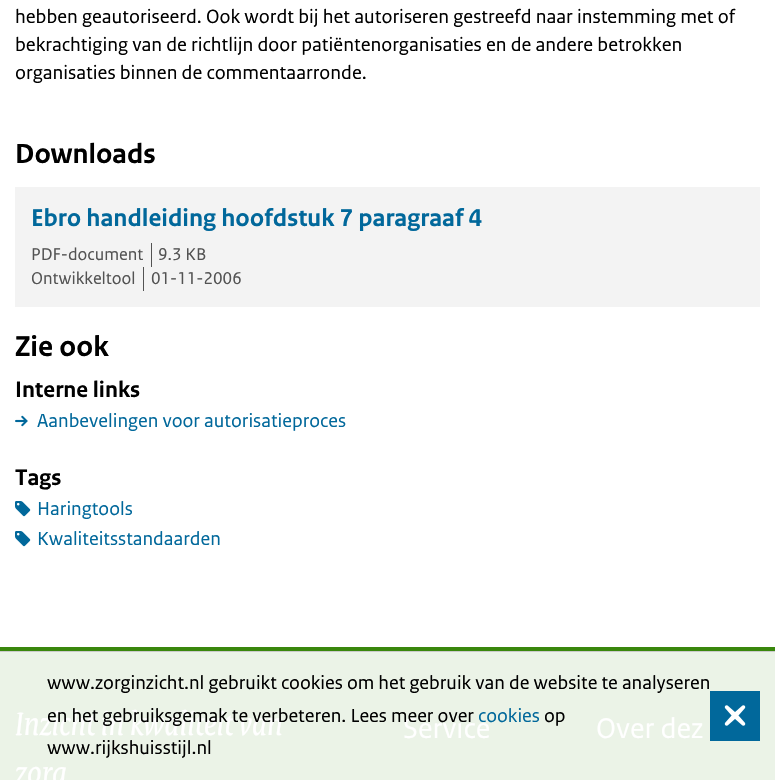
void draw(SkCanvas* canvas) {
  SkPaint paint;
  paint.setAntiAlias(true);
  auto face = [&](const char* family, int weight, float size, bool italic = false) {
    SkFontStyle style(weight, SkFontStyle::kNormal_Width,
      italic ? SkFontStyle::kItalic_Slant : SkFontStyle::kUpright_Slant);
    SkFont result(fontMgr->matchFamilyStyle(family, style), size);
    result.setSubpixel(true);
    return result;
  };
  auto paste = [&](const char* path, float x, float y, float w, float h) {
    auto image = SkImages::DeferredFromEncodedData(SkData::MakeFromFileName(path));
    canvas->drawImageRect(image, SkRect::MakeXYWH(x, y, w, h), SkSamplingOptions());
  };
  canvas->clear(0xffffffff);
  {
    const struct { float x, y, w, h; SkColor color; } items[] = {
      {15, 187, 745, 120, 0xfff3f3f3},
      {151, 243, 1, 24, 0xff535353},
      {143, 267, 1, 24, 0xff535353},
    };
    for (auto [x, y, w, h, color] : items) {
      paint.setColor(color);
      canvas->drawRect(SkRect::MakeXYWH(x, y, w, h), paint);
    }
  }
  paste("img/1.png", 15, 415, 13, 12);
  paste("img/2.png", 15, 501, 16, 16);
  paste("img/2.png", 15, 531, 16, 16);
  {
    const struct { float x, y, w, h; SkColor color; } items[] = {
      {0, 651, 775, 1, 0xffcbcbcb},
      {0, 652, 775, 128, 0xffebf3e7},
      {710, 691, 50, 50, 0xff01689b},
    };
    for (auto [x, y, w, h, color] : items) {
      paint.setColor(color);
      canvas->drawRect(SkRect::MakeXYWH(x, y, w, h), paint);
    }
  }
  paste("img/3.png", 724, 705, 22, 21);
  paint.setColor(0xff39870c);
  canvas->drawRect(SkRect::MakeXYWH(0, 647, 775, 4), paint);
  auto f0 = face("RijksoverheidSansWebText", 400, 20.25f);
  paint.setColor(0xff000000);
  {
    const struct { const char* s; float x, y; } items[] = {
      {"hebben geautoriseerd. Ook wordt bij het autoriseren gestreefd naar instemming met of", 15, 23},
      {"bekrachtiging van de richtlijn door patiëntenorganisaties en de andere betrokken", 15, 51},
      {"organisaties binnen de commentaarronde.", 15, 79},
    };
    for (auto [s, x, y] : items) {
      canvas->drawString(s, x, y, f0, paint);
    }
  }
  auto f1 = face("RijksoverheidSansWebText", 700, 29);
  canvas->drawString("Downloads", 15, 163, f1, paint);
  auto f2 = face("RijksoverheidSansWebText", 700, 25.6f);
  paint.setColor(0xff01689b);
  canvas->drawString("Ebro handleiding hoofdstuk 7 paragraaf 4", 31, 226, f2, paint);
  auto f3 = face("RijksoverheidSansWebText", 400, 18);
  paint.setColor(0xff535353);
  {
    const struct { const char* s; float x, y; } items[] = {
      {"PDF-document", 31, 260},
      {"9.3 KB", 158, 260},
      {"Ontwikkeltool", 31, 284},
      {"01-11-2006", 151, 284},
    };
    for (auto [s, x, y] : items) {
      canvas->drawString(s, x, y, f3, paint);
    }
  }
  auto f4 = face("RijksoverheidSansWebText", 700, 30);
  paint.setColor(0xff000000);
  canvas->drawString("Zie ook", 15, 356, f4, paint);
  auto f5 = face("RijksoverheidSansWebText", 700, 23.5f);
  canvas->drawString("Interne links", 15, 397, f5, paint);
  auto f6 = face("RijksoverheidSansWebText", 400, 20);
  paint.setColor(0xff01689b);
  canvas->drawString("Aanbevelingen voor autorisatieproces", 37, 427, f6, paint);
  paint.setColor(0xff000000);
  canvas->drawString("Tags", 15, 485, f5, paint);
  paint.setColor(0xff01689b);
  canvas->drawString("Haringtools", 37, 515, f6, paint);
  canvas->drawString("Kwaliteitsstandaarden", 37, 545, f6, paint);
  paint.setColor(0xff000000);
  canvas->drawString("www.zorginzicht.nl gebruikt cookies om het gebruik van de website te analyseren", 47, 689, f6, paint);
  paint.setColor(0xff01689b);
  canvas->drawString("cookies", 478, 722, f6, paint);
  paint.setColor(0xff000000);
  canvas->drawString("op", 544, 722, f6, paint);
  canvas->drawString("www.rijkshuisstijl.nl", 47, 754, f6, paint);
  auto f7 = face("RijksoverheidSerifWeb", 400, 35, true);
  paint.setColor(0xffffffff);
  canvas->drawString("Inzicht in kwaliteit van", 15, 735, f7, paint);
  canvas->drawString("zorg", 15, 784, f7, paint);
  auto f8 = face("RijksoverheidSansWebText", 400, 30);
  canvas->drawString("Service", 403, 738, f8, paint);
  paint.setColor(0xff000000);
  canvas->drawString("en het gebruiksgemak te verbeteren. Lees meer over", 47, 722, f6, paint);
  paint.setColor(0xffffffff);
  canvas->drawString("Over dez", 596, 738, f8, paint);
}
